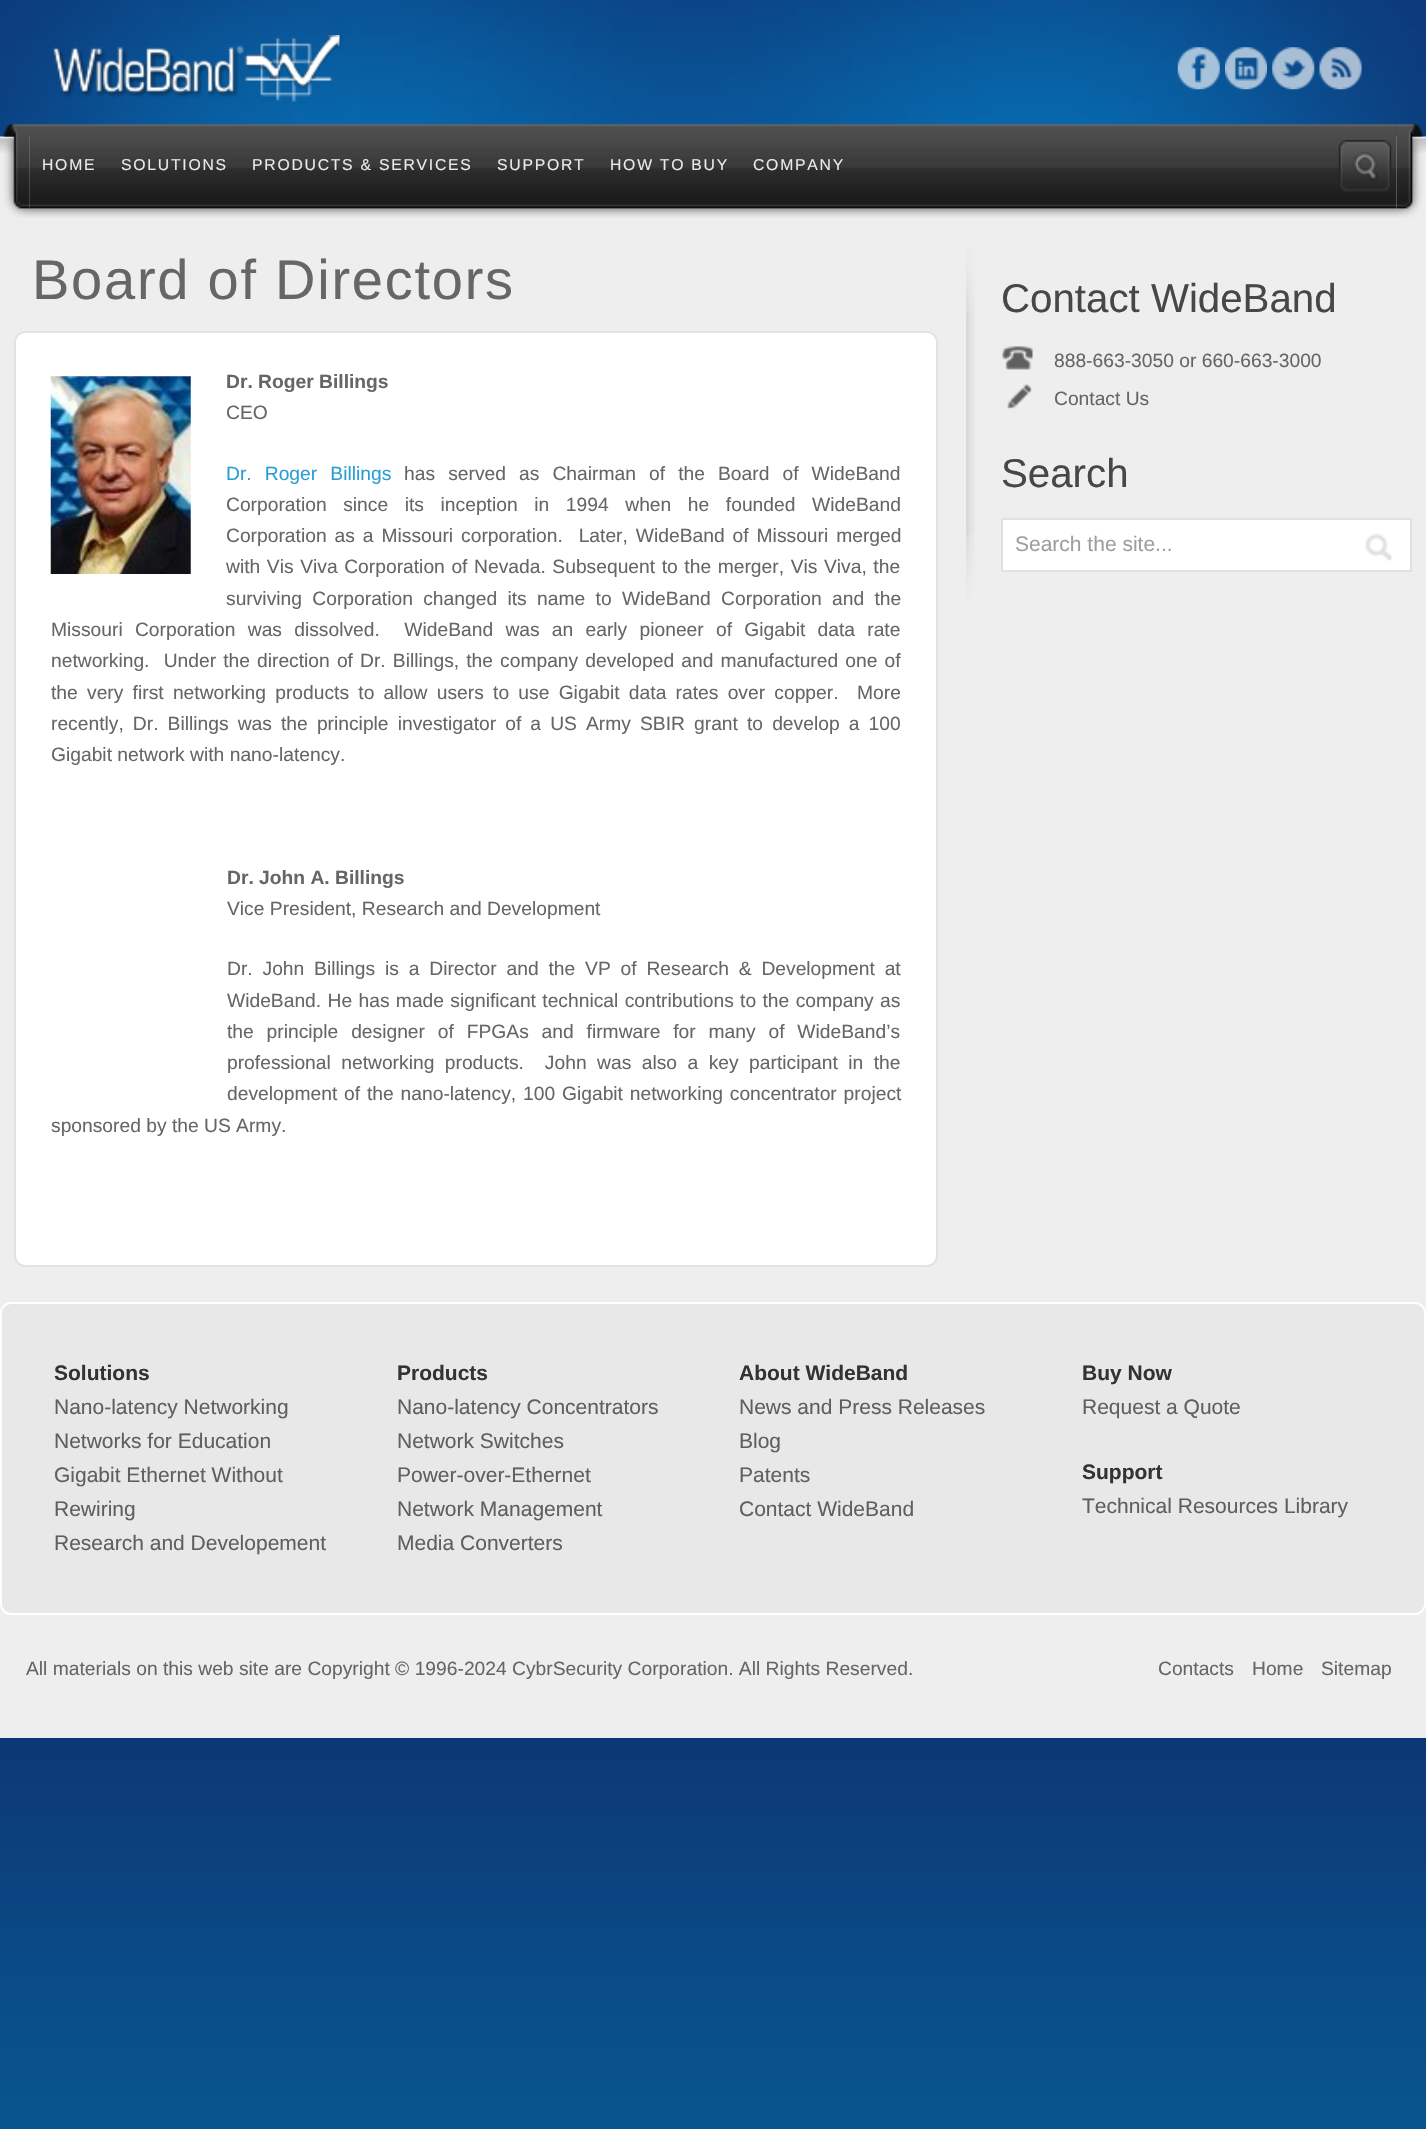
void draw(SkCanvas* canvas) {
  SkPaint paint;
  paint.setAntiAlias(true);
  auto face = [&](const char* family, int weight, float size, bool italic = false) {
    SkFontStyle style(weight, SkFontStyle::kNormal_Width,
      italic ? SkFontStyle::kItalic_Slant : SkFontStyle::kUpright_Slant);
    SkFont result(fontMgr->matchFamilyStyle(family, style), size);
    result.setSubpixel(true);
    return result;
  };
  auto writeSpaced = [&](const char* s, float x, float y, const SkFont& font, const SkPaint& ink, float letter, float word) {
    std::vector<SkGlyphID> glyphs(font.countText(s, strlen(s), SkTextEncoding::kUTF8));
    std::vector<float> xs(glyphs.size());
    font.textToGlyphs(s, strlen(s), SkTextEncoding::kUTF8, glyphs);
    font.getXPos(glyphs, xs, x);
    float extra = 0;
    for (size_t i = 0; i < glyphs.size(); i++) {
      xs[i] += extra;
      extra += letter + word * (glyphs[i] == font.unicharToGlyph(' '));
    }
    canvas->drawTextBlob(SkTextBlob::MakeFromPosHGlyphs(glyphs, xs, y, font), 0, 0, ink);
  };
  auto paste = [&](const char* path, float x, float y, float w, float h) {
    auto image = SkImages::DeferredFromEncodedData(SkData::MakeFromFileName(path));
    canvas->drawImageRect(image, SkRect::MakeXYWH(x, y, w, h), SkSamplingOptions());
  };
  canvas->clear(0xffffffff);
  paste("img/1.png", 0, 1738, 1426, 391);
  paste("img/2.png", 0, 0, 1426, 137);
  paste("img/3.png", 52, 35, 290, 67);
  paste("img/4.png", 1177, 47, 43, 43);
  paste("img/5.png", 1225, 47, 42, 43);
  paste("img/6.png", 1272, 47, 43, 43);
  paste("img/7.png", 1319, 47, 43, 43);
  paste("img/8.png", 0, 136, 1426, 17);
  paint.setColor(0xffeeeeee);
  canvas->drawRect(SkRect::MakeXYWH(0, 153, 1426, 1585), paint);
  paste("img/10.png", 29, 123, 1368, 95);
  paste("img/9.png", 3, 123, 27, 95);
  paste("img/11.png", 1338, 140, 54, 52);
  paste("img/12.png", 1396, 123, 28, 95);
  paint.setColor(0xffffffff);
  canvas->drawRoundRect(SkRect::MakeXYWH(15, 332, 922, 934), 10, 10, paint);
  paint.setStroke(true);
  paint.setStrokeWidth(2);
  paint.setColor(0xffe3e3e3);
  canvas->drawRoundRect(SkRect::MakeXYWH(15, 332, 922, 934), 10, 10, paint);
  paste("img/13.png", 50, 376, 141, 198);
  paste("img/14.png", 966, 222, 9, 403);
  paste("img/15.png", 966, 222, 9, 91);
  paste("img/16.png", 1002, 346, 31, 24);
  paste("img/17.png", 1007, 384, 25, 25);
  paint.setStroke(false);
  paint.setColor(0xffffffff);
  canvas->drawRect(SkRect::MakeXYWH(1002, 519, 409, 52), paint);
  paint.setStroke(true);
  paint.setColor(0xffe1e1e1);
  canvas->drawRect(SkRect::MakeXYWH(1002, 519, 409, 52), paint);
  paste("img/18.png", 1365, 533, 28, 28);
  paste("img/19.png", 966, 534, 9, 91);
  paint.setStroke(false);
  paint.setColor(0xffe8e8e8);
  canvas->drawRoundRect(SkRect::MakeXYWH(1, 1303, 1424, 311), 10, 10, paint);
  paint.setStroke(true);
  paint.setColor(0xffffffff);
  canvas->drawRoundRect(SkRect::MakeXYWH(1, 1303, 1424, 311), 10, 10, paint);
  auto f0 = face("Liberation Sans", 400, 15.75f);
  paint.setStroke(false);
  paint.setColor(0xffeaeaea);
  {
    const struct { const char* s; float x, y; } items[] = {
      {"HOME", 42, 170},
      {"SOLUTIONS", 121, 170},
      {"PRODUCTS & SERVICES", 252, 170},
      {"SUPPORT", 497, 170},
      {"HOW TO BUY", 610, 170},
      {"COMPANY", 753, 170},
    };
    for (auto [s, x, y] : items) {
      writeSpaced(s, x, y, f0, paint, 1.75f, 0);
    }
  }
  auto f1 = face("Liberation Sans", 400, 56);
  paint.setColor(0xff666666);
  writeSpaced("Board of Directors", 32, 299, f1, paint, 1.75f, 0);
  auto f2 = face("Liberation Sans", 700, 19.25f);
  canvas->drawString("Dr. Roger Billings", 226, 388, f2, paint);
  auto f3 = face("Liberation Sans", 400, 19.25f);
  canvas->drawString("CEO", 226, 419, f3, paint);
  paint.setColor(0xff2a9ed4);
  writeSpaced("Dr. Roger Billings", 226, 480, f3, paint, 0, 7.75f);
  paint.setColor(0xff666666);
  writeSpaced("has served as Chairman of the Board of WideBand", 404, 480, f3, paint, 0, 7.75f);
  writeSpaced("Corporation since its inception in 1994 when he founded WideBand", 226, 511, f3, paint, 0, 11.25f);
  writeSpaced("Corporation as a Missouri corporation.  Later, WideBand of Missouri merged", 226, 542, f3, paint, 0, 2.6f);
  writeSpaced("with Vis Viva Corporation of Nevada. Subsequent to the merger, Vis Viva, the", 226, 573, f3, paint, 0, 1.25f);
  writeSpaced("surviving Corporation changed its name to WideBand Corporation and the", 226, 605, f3, paint, 0, 5);
  writeSpaced("Missouri Corporation was dissolved.  WideBand was an early pioneer of Gigabit data rate", 51, 636, f3, paint, 0, 6.9f);
  writeSpaced("networking.  Under the direction of Dr. Billings, the company developed and manufactured one of", 51, 667, f3, paint, 0, 1.75f);
  writeSpaced("the very first networking products to allow users to use Gigabit data rates over copper.  More", 51, 699, f3, paint, 0, 3.9f);
  writeSpaced("recently, Dr. Billings was the principle investigator of a US Army SBIR grant to develop a 100", 51, 730, f3, paint, 0, 3.75f);
  canvas->drawString("Gigabit network with nano-latency.", 51, 761, f3, paint);
  canvas->drawString("Dr. John A. Billings", 227, 884, f2, paint);
  canvas->drawString("Vice President, Research and Development", 227, 915, f3, paint);
  writeSpaced("Dr. John Billings is a Director and the VP of Research & Development at", 227, 975, f3, paint, 0, 4.5f);
  writeSpaced("WideBand. He has made significant technical contributions to the company as", 227, 1007, f3, paint, 0, 1);
  writeSpaced("the principle designer of FPGAs and firmware for many of WideBand’s", 227, 1038, f3, paint, 0, 7.5f);
  writeSpaced("professional networking products.  John was also a key participant in the", 227, 1069, f3, paint, 0, 5.1f);
  writeSpaced("development of the nano-latency, 100 Gigabit networking concentrator project", 227, 1100, f3, paint, 0, 1.5f);
  canvas->drawString("sponsored by the US Army.", 51, 1132, f3, paint);
  auto f4 = face("Liberation Sans", 400, 40.25f);
  paint.setColor(0xff474747);
  canvas->drawString("Contact WideBand", 1001, 312, f4, paint);
  paint.setColor(0xff666666);
  canvas->drawString("888-663-3050 or 660-663-3000", 1054, 367, f3, paint);
  canvas->drawString("Contact Us", 1054, 405, f3, paint);
  paint.setColor(0xff474747);
  canvas->drawString("Search", 1001, 487, f4, paint);
  auto f5 = face("Liberation Sans", 400, 21);
  paint.setColor(0xff9e9e9e);
  canvas->drawString("Search the site...", 1015, 551, f5, paint);
  auto f6 = face("Liberation Sans", 700, 21);
  paint.setColor(0xff333333);
  canvas->drawString("Solutions", 54, 1380, f6, paint);
  paint.setColor(0xff5f5f5f);
  {
    const struct { const char* s; float x, y; } items[] = {
      {"Nano-latency Networking", 54, 1414},
      {"Networks for Education", 54, 1448},
      {"Gigabit Ethernet Without", 54, 1482},
      {"Rewiring", 54, 1516},
      {"Research and Developement", 54, 1550},
    };
    for (auto [s, x, y] : items) {
      canvas->drawString(s, x, y, f5, paint);
    }
  }
  paint.setColor(0xff333333);
  canvas->drawString("Products", 397, 1380, f6, paint);
  paint.setColor(0xff5f5f5f);
  {
    const struct { const char* s; float x, y; } items[] = {
      {"Nano-latency Concentrators", 397, 1414},
      {"Network Switches", 397, 1448},
      {"Power-over-Ethernet", 397, 1482},
      {"Network Management", 397, 1516},
      {"Media Converters", 397, 1550},
    };
    for (auto [s, x, y] : items) {
      canvas->drawString(s, x, y, f5, paint);
    }
  }
  paint.setColor(0xff333333);
  canvas->drawString("About WideBand", 739, 1380, f6, paint);
  paint.setColor(0xff5f5f5f);
  {
    const struct { const char* s; float x, y; } items[] = {
      {"News and Press Releases", 739, 1414},
      {"Blog", 739, 1448},
      {"Patents", 739, 1482},
      {"Contact WideBand", 739, 1516},
    };
    for (auto [s, x, y] : items) {
      canvas->drawString(s, x, y, f5, paint);
    }
  }
  paint.setColor(0xff333333);
  canvas->drawString("Buy Now", 1082, 1380, f6, paint);
  paint.setColor(0xff5f5f5f);
  canvas->drawString("Request a Quote", 1082, 1414, f5, paint);
  paint.setColor(0xff333333);
  canvas->drawString("Support", 1082, 1479, f6, paint);
  paint.setColor(0xff5f5f5f);
  canvas->drawString("Technical Resources Library", 1082, 1513, f5, paint);
  paint.setColor(0xff666666);
  {
    const struct { const char* s; float x, y; } items[] = {
      {"All materials on this web site are Copyright © 1996-2024 CybrSecurity Corporation. All Rights Reserved.", 26, 1675},
      {"Contacts", 1158, 1675},
      {"Home", 1252, 1675},
      {"Sitemap", 1321, 1675},
    };
    for (auto [s, x, y] : items) {
      canvas->drawString(s, x, y, f3, paint);
    }
  }
}
